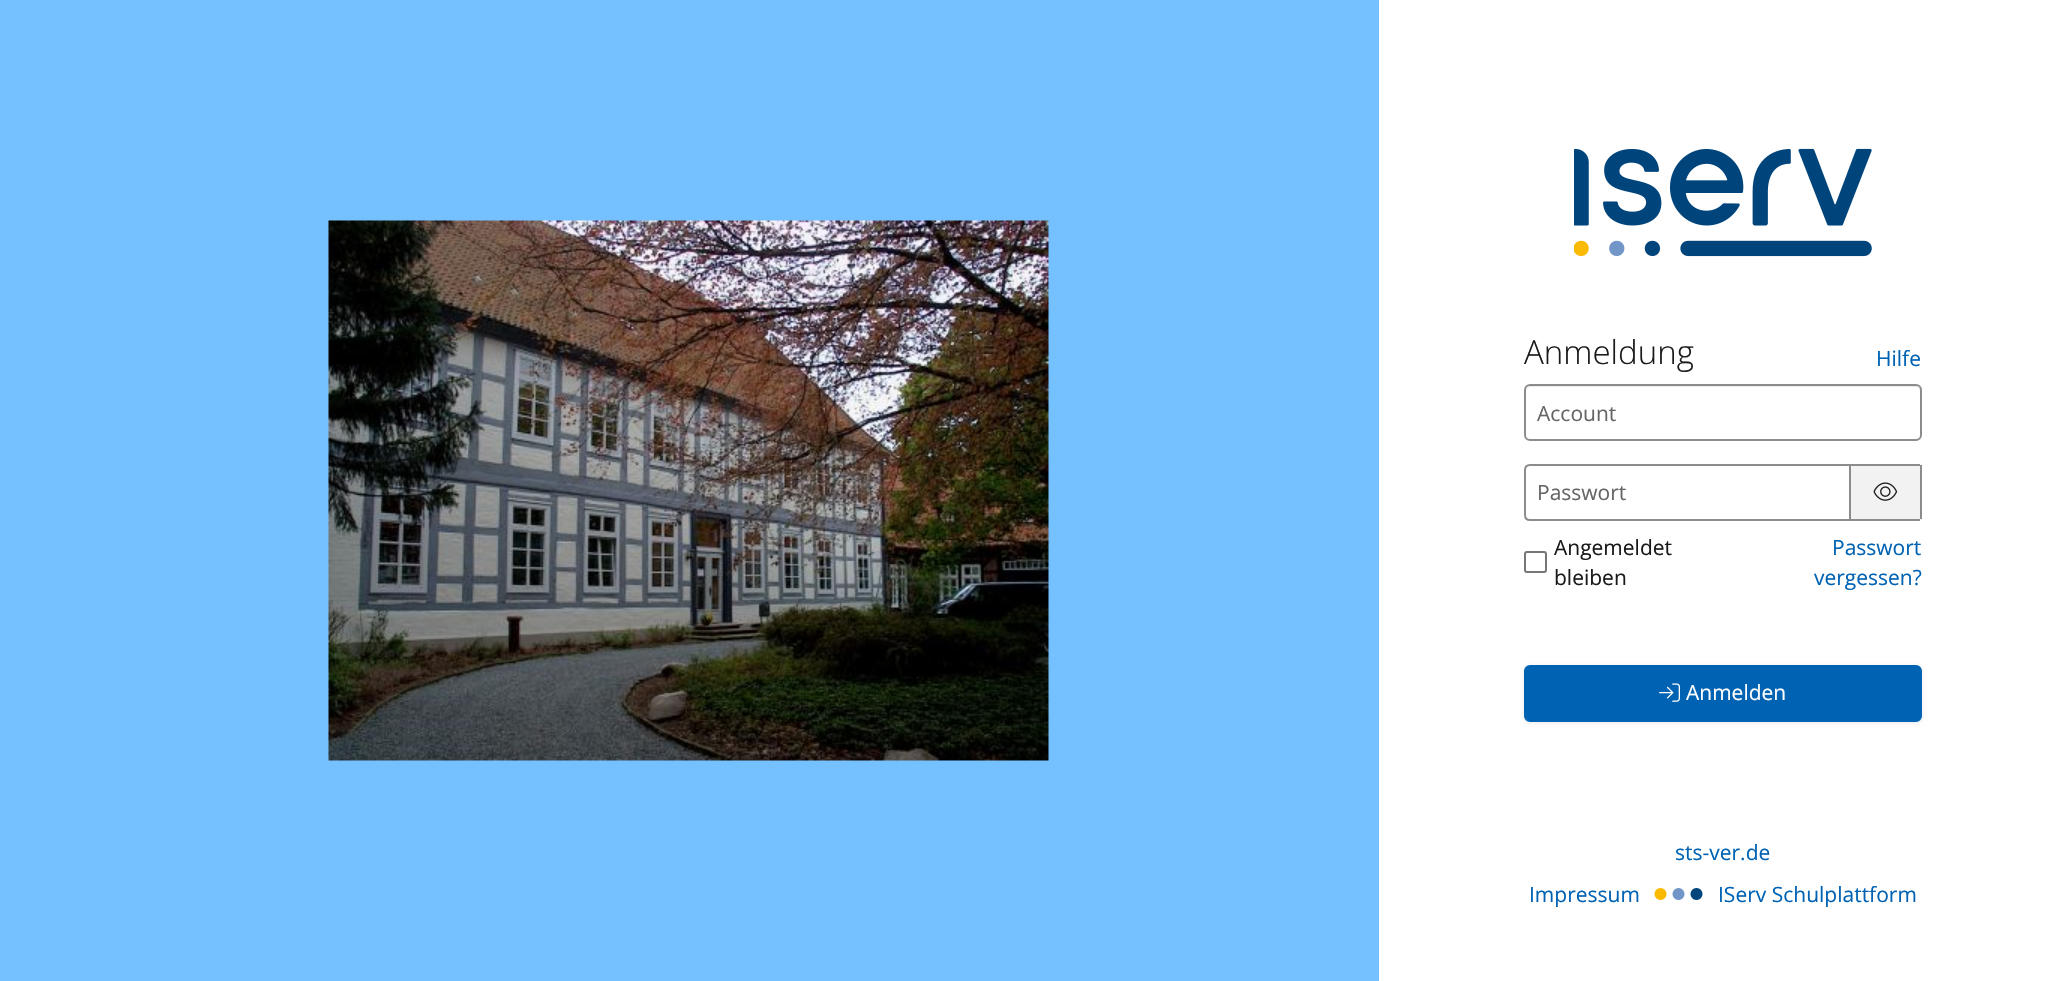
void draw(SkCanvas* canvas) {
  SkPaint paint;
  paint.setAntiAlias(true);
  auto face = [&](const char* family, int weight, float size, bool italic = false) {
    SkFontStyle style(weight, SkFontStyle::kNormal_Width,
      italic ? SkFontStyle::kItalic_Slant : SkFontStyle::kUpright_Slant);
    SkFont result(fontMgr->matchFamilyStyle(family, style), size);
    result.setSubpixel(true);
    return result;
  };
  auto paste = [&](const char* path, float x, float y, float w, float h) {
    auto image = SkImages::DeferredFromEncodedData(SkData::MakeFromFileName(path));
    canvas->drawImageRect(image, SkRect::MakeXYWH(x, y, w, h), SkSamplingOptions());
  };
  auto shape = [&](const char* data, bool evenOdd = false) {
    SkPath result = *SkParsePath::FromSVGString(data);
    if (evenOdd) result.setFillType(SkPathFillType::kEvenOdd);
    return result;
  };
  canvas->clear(0xffffffff);
  paint.setColor(0xff75c1ff);
  canvas->drawRect(SkRect::MakeXYWH(0, 0, 1379, 981), paint);
  paste("img/1.png", 328, 220, 721, 541);
  paste("img/2.png", 1574, 148, 298, 109);
  paint.setColor(0xffececec);
  canvas->drawPath(shape("M1530 387H1916C1918 387 1920 389 1920 392V391C1920 388 1918 386 1915 386H1531C1528 386 1526 388 1526 391V392C1526 389 1528 387 1530 387Z"), paint);
  paint.setStroke(true);
  paint.setStrokeWidth(2);
  paint.setColor(0xff8c8c8c);
  canvas->drawRoundRect(SkRect::MakeXYWH(1525, 385, 396, 55), 5, 5, paint);
  paint.setStroke(false);
  paint.setColor(0xffececec);
  canvas->drawPath(shape("M1530 466H1850V465H1531C1528 465 1526 468 1526 471C1526 469 1528 466 1530 466Z"), paint);
  paint.setStroke(true);
  paint.setColor(0xff8c8c8c);
  canvas->drawPath(shape("M1530 465H1850V520H1530C1527 520 1525 518 1525 515V470C1525 467 1527 465 1530 465Z"), paint);
  paint.setStroke(false);
  paint.setColor(0xfff2f2f2);
  canvas->drawPath(shape("M1851 464H1919C1920.5 464 1922 465.5 1922 467V518C1922 519.5 1920.5 521 1919 521H1851Z"), paint);
  {
    const struct { float x, y, w, h; SkColor color; } items[] = {
      {1851, 464, 69, 2, 0xff8c8c8c},
      {1920, 465, 2, 54, 0xff8c8c8c},
      {1851, 519, 69, 2, 0xff8c8c8c},
    };
    for (auto [x, y, w, h, color] : items) {
      paint.setColor(color);
      canvas->drawRect(SkRect::MakeXYWH(x, y, w, h), paint);
    }
  }
  paste("img/3.png", 1873, 482, 25, 19);
  paint.setStroke(true);
  paint.setColor(0xff767676);
  canvas->drawRoundRect(SkRect::MakeXYWH(1525, 552, 21, 20), 2, 2, paint);
  paint.setStroke(false);
  paint.setColor(0x14000000);
  paint.setMaskFilter(SkMaskFilter::MakeBlur(kNormal_SkBlurStyle, 2));
  canvas->drawRoundRect(SkRect::MakeXYWH(1524, 666, 398, 57), 6, 6, paint);
  paint.setMaskFilter(nullptr);
  paint.setColor(0xff0062b3);
  canvas->drawRoundRect(SkRect::MakeXYWH(1525, 666, 396, 55), 5, 5, paint);
  paint.setStroke(true);
  canvas->drawRoundRect(SkRect::MakeXYWH(1525, 666, 396, 55), 5, 5, paint);
  paste("img/4.png", 1659, 683, 21, 19);
  paste("img/5.png", 1654, 888, 13, 12);
  paste("img/6.png", 1672, 888, 13, 12);
  paste("img/7.png", 1690, 888, 13, 12);
  auto f0 = face("Open Sans", 300, 33);
  paint.setStroke(false);
  paint.setColor(0xff1a1a1a);
  canvas->drawString("Anmeldung", 1524, 364, f0, paint);
  auto f1 = face("Open Sans", 400, 21);
  paint.setColor(0xff0062b3);
  canvas->drawString("Hilfe", 1876, 366, f1, paint);
  paint.setColor(0xff666666);
  canvas->drawString("Account", 1537, 421, f1, paint);
  canvas->drawString("Passwort", 1537, 500, f1, paint);
  paint.setColor(0xff1a1a1a);
  canvas->drawString("Angemeldet", 1554, 555, f1, paint);
  canvas->drawString("bleiben", 1554, 585, f1, paint);
  paint.setColor(0xff0062b3);
  canvas->drawString("Passwort", 1832, 555, f1, paint);
  canvas->drawString("vergessen?", 1814, 585, f1, paint);
  paint.setColor(0xffffffff);
  canvas->drawString("Anmelden", 1686, 700, f1, paint);
  paint.setColor(0xff0062b3);
  {
    const struct { const char* s; float x, y; } items[] = {
      {"sts-ver.de", 1675, 860},
      {"Impressum", 1529, 902},
      {"IServ Schulplattform", 1718, 902},
    };
    for (auto [s, x, y] : items) {
      canvas->drawString(s, x, y, f1, paint);
    }
  }
}
